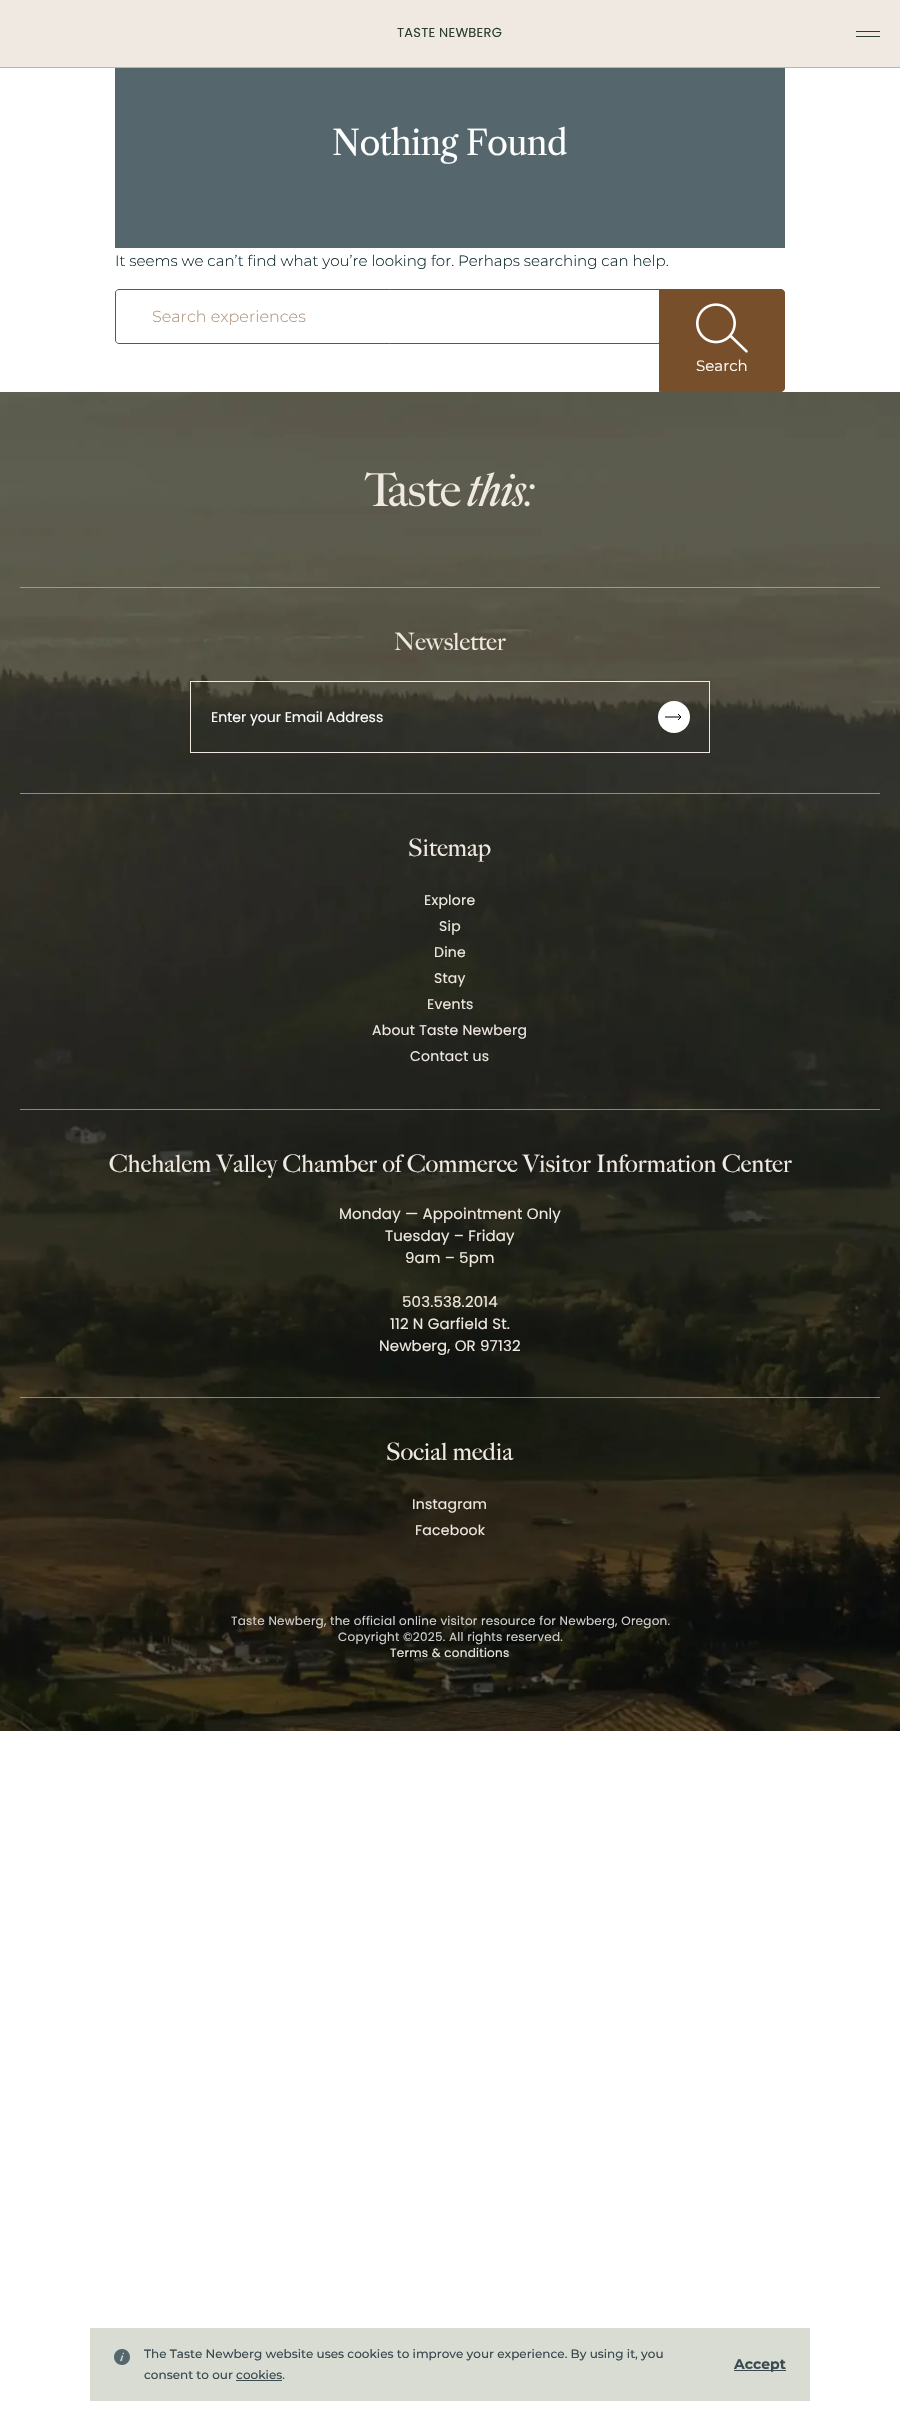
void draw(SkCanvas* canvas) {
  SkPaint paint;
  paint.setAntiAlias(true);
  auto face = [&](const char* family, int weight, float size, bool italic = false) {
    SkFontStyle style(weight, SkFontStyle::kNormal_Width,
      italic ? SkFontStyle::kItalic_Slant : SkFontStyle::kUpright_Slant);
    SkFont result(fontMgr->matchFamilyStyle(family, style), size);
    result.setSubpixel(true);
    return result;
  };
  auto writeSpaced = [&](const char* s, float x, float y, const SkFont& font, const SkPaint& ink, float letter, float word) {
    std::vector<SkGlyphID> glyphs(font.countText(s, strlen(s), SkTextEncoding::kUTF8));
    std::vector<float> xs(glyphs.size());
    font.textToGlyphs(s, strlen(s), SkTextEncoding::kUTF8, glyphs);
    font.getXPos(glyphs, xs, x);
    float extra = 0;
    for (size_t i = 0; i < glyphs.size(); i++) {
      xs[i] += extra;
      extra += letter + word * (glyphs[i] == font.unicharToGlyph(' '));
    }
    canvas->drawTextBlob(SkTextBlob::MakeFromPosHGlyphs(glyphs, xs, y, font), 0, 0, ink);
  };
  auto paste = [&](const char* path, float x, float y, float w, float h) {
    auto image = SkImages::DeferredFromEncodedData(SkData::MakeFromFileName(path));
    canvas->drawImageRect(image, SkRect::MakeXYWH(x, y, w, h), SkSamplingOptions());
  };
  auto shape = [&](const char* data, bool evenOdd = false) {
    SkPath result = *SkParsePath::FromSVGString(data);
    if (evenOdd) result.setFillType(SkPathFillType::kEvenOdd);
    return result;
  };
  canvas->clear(0xffffffff);
  {
    const struct { float x, y, w, h; SkColor color; } items[] = {
      {0, 0, 900, 67, 0xfff0e9e1},
      {0, 67, 900, 1, 0xffb5b6ac},
      {856, 31, 24, 1, 0xff2b3e2f},
      {856, 36, 24, 1, 0xff2b3e2f},
      {115, 68, 670, 180, 0xff55676c},
    };
    for (auto [x, y, w, h, color] : items) {
      paint.setColor(color);
      canvas->drawRect(SkRect::MakeXYWH(x, y, w, h), paint);
    }
  }
  paint.setStroke(true);
  paint.setStrokeWidth(1);
  paint.setColor(0xff784f2b);
  canvas->drawPath(shape("M119 289.5H659.5V343.5H119C117 343.5 115.5 342 115.5 340V293C115.5 291 117 289.5 119 289.5Z"), paint);
  paint.setStroke(false);
  canvas->drawPath(shape("M659.5 289.5H781C783 289.5 784.5 291 784.5 293V388C784.5 390 783 391.5 781 391.5H659.5Z"), paint);
  paint.setStroke(true);
  canvas->drawPath(shape("M659.5 289.5H781C783 289.5 784.5 291 784.5 293V388C784.5 390 783 391.5 781 391.5H659.5Z"), paint);
  paste("img/1.png", 696, 303, 52, 50);
  paste("img/2.png", 0, 392, 900, 1339);
  paint.setStroke(false);
  paint.setColor(0x80dcdcdc);
  canvas->drawRect(SkRect::MakeXYWH(20, 587, 860, 1), paint);
  paste("img/3.png", 364, 472, 171, 35);
  paint.setColor(0x80f0e9e1);
  canvas->drawRect(SkRect::MakeXYWH(20, 793, 860, 1), paint);
  paint.setStroke(true);
  paint.setColor(0xfff0e9e1);
  canvas->drawRect(SkRect::MakeXYWH(190.5f, 681.5f, 519, 71), paint);
  paint.setStroke(false);
  paint.setColor(0xffffffff);
  canvas->drawCircle(674, 717, 16, paint);
  paint.setStroke(true);
  paint.setColor(0xff000000);
  canvas->drawPath(shape("M665 717H681M678 714L681 717L678 720"), paint);
  paint.setStroke(false);
  {
    const struct { float x, y, w, h; SkColor color; } items[] = {
      {20, 1109, 860, 1, 0x80f0e9e1},
      {20, 1397, 860, 1, 0x80f0e9e1},
      {90, 2328, 720, 73, 0xffd8dcd3},
    };
    for (auto [x, y, w, h, color] : items) {
      paint.setColor(color);
      canvas->drawRect(SkRect::MakeXYWH(x, y, w, h), paint);
    }
  }
  paste("img/4.png", 114, 2349, 16, 16);
  paint.setColor(0xff3a4a4f);
  canvas->drawRect(SkRect::MakeXYWH(236, 2380, 46, 1), paint);
  canvas->drawRect(SkRect::MakeXYWH(734, 2370, 52, 1), paint);
  auto f0 = face("Poppins", 400, 13);
  paint.setColor(0xff2b3e2f);
  writeSpaced("TASTE NEWBERG", 397, 37, f0, paint, 0.25f, 0);
  auto f1 = face("Libre Caslon Text", 400, 34);
  paint.setColor(0xffffffff);
  writeSpaced("Nothing Found", 332, 155, f1, paint, -0.75f, 0);
  auto f2 = face("Montserrat", 300, 15.05f);
  paint.setColor(0xff0d272d);
  canvas->drawString("It seems we can’t find what you’re looking for. Perhaps searching can help.", 115, 266, f2, paint);
  auto f3 = face("Montserrat", 300, 16);
  paint.setColor(0xffb0947b);
  canvas->drawString("Search experiences", 152, 322, f3, paint);
  auto f4 = face("Montserrat", 400, 15);
  paint.setColor(0xffffffff);
  canvas->drawString("Search", 696, 371, f4, paint);
  auto f5 = face("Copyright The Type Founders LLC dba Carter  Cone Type", 400, 24);
  paint.setColor(0xfff0e9e1);
  writeSpaced("Newsletter", 394, 650, f5, paint, 0.25f, 0);
  auto f6 = face("Poppins", 400, 14);
  paint.setColor(0xffffffff);
  canvas->drawString("Enter your Email Address", 211, 722, f6, paint);
  paint.setColor(0xfff0e9e1);
  writeSpaced("Sitemap", 408, 856, f5, paint, 0.25f, 0);
  {
    const struct { const char* s; float x, y; } items[] = {
      {"Explore", 424, 905},
      {"Sip", 439, 931},
      {"Dine", 434, 957},
      {"Stay", 434, 983},
      {"Events", 427, 1009},
      {"About Taste Newberg", 372, 1035},
      {"Contact us", 410, 1061},
    };
    for (auto [s, x, y] : items) {
      writeSpaced(s, x, y, f6, paint, 0.25f, 0);
    }
  }
  writeSpaced("Chehalem Valley Chamber of Commerce Visitor Information Center", 109, 1172, f5, paint, 0.25f, 0);
  auto f7 = face("Poppins", 400, 15);
  {
    const struct { const char* s; float x, y; } items[] = {
      {"Monday — Appointment Only", 339, 1219},
      {"Tuesday – Friday", 385, 1241},
      {"9am – 5pm", 405, 1263},
      {"503.538.2014", 402, 1307},
      {"112 N Garfield St.", 390, 1329},
      {"Newberg, OR 97132", 379, 1351},
    };
    for (auto [s, x, y] : items) {
      writeSpaced(s, x, y, f7, paint, 0.15f, 0);
    }
  }
  writeSpaced("Social media", 386, 1460, f5, paint, 0.25f, 0);
  writeSpaced("Instagram", 412, 1509, f6, paint, 0.25f, 0);
  writeSpaced("Facebook", 415, 1535, f6, paint, 0.25f, 0);
  auto f8 = face("Poppins", 400, 12);
  paint.setColor(0xffd1d0cf);
  writeSpaced("Taste Newberg, the official online visitor resource for Newberg, Oregon.", 231, 1625, f8, paint, 0.25f, 0);
  writeSpaced("Copyright ©2025. All rights reserved.", 338, 1641, f8, paint, 0.25f, 0);
  paint.setColor(0xfff0e9e1);
  writeSpaced("Terms & conditions", 390, 1657, f8, paint, 0.25f, 0);
  auto f9 = face("Montserrat", 500, 12);
  paint.setColor(0xff3a4a4f);
  canvas->drawString("The Taste Newberg website uses cookies to improve your experience. By using it, you", 144, 2358, f9, paint);
  canvas->drawString("consent to our cookies.", 144, 2379, f9, paint);
  auto f10 = face("Montserrat", 700, 14);
  canvas->drawString("Accept", 734, 2369, f10, paint);
}
